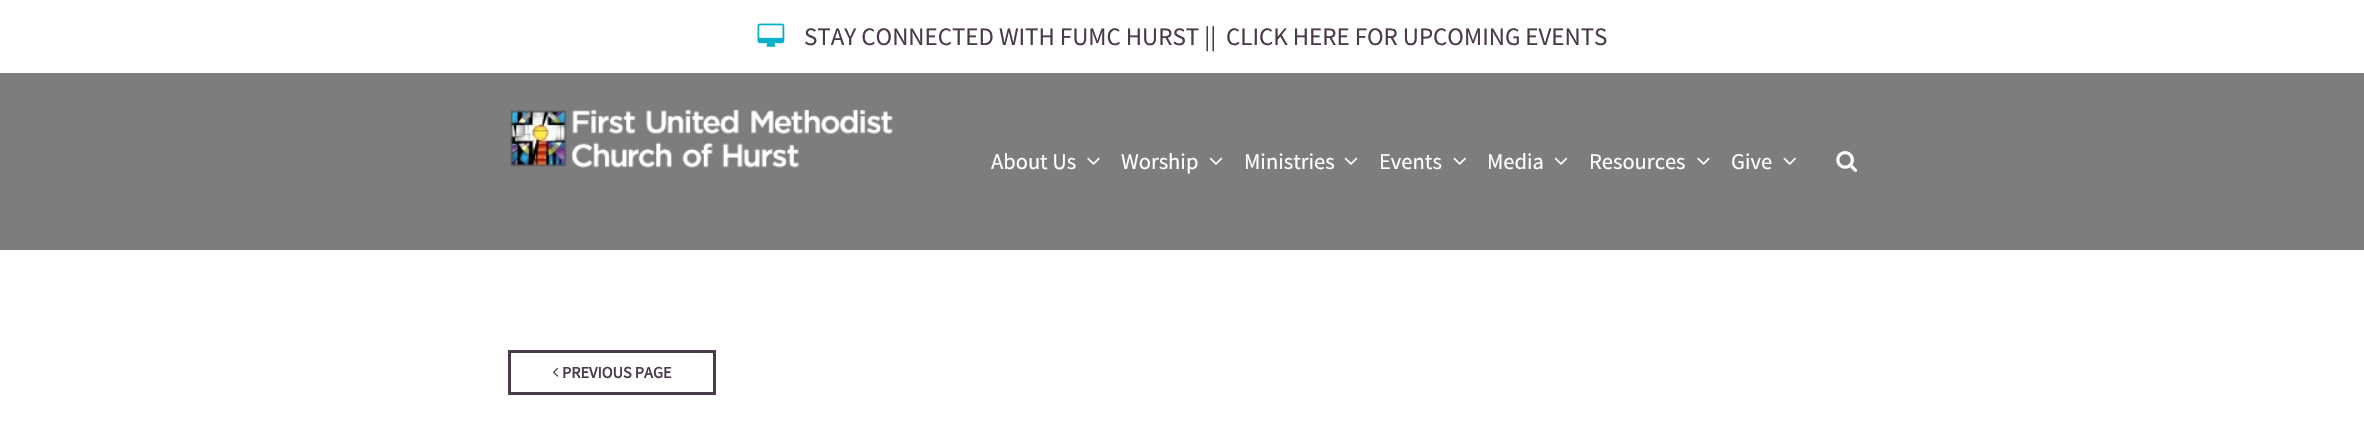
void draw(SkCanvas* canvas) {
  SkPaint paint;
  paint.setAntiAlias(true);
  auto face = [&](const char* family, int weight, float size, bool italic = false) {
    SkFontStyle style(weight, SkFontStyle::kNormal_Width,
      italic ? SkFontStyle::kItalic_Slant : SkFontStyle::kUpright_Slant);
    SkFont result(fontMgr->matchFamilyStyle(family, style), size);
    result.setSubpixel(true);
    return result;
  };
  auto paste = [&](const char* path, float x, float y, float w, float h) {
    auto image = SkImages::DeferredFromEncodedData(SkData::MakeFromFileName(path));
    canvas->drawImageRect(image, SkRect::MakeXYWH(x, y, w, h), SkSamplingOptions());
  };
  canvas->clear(0xffffffff);
  paste("img/1.png", 757, 23, 28, 24);
  paint.setColor(0xff7d7d7d);
  canvas->drawRect(SkRect::MakeXYWH(0, 73, 2364, 177), paint);
  paste("img/2.png", 510, 109, 383, 59);
  paste("img/3.png", 1087, 157, 13, 8);
  paste("img/4.png", 1209, 157, 14, 8);
  paste("img/4.png", 1344, 157, 14, 8);
  paste("img/5.png", 1453, 157, 13, 8);
  paste("img/4.png", 1554, 157, 14, 8);
  paste("img/3.png", 1697, 157, 13, 8);
  paste("img/5.png", 1783, 157, 13, 8);
  paste("img/6.png", 1836, 151, 22, 21);
  paint.setStroke(true);
  paint.setStrokeWidth(3);
  paint.setColor(0xff4a3b4a);
  canvas->drawRect(SkRect::MakeXYWH(509.5f, 351.5f, 205, 42), paint);
  paste("img/7.png", 553, 367, 6, 10);
  auto f0 = face("Source Sans Pro", 400, 25);
  paint.setStroke(false);
  canvas->drawString("STAY CONNECTED WITH FUMC HURST ||", 804, 45, f0, paint);
  canvas->drawString("CLICK HERE FOR UPCOMING EVENTS", 1226, 45, f0, paint);
  auto f1 = face("Source Sans Pro", 400, 22.5f);
  paint.setColor(0xffffffff);
  {
    const struct { const char* s; float x, y; } items[] = {
      {"About Us", 991, 169},
      {"Worship", 1121, 169},
      {"Ministries", 1244, 169},
      {"Events", 1379, 169},
      {"Media", 1487, 169},
      {"Resources", 1589, 169},
      {"Give", 1731, 169},
    };
    for (auto [s, x, y] : items) {
      canvas->drawString(s, x, y, f1, paint);
    }
  }
  auto f2 = face("Source Sans Pro", 700, 16.25f);
  paint.setColor(0xff4a3b4a);
  canvas->drawString("PREVIOUS PAGE", 562, 378, f2, paint);
}
